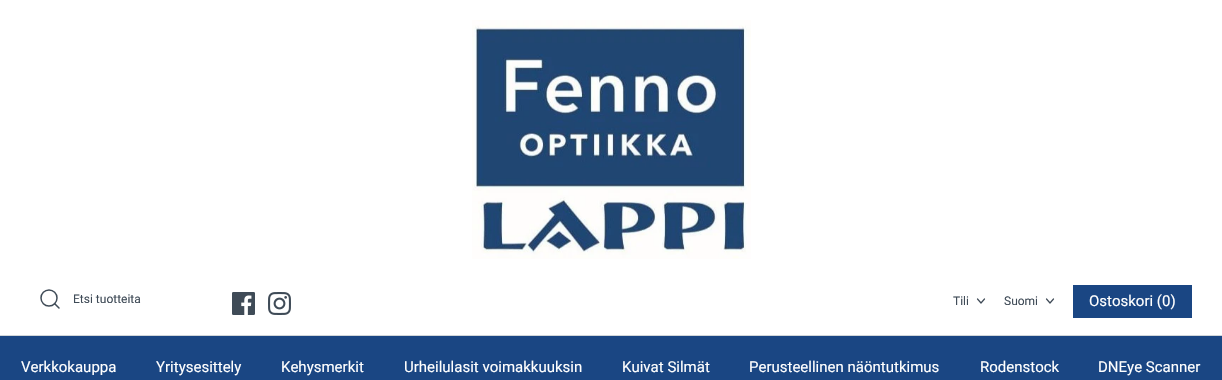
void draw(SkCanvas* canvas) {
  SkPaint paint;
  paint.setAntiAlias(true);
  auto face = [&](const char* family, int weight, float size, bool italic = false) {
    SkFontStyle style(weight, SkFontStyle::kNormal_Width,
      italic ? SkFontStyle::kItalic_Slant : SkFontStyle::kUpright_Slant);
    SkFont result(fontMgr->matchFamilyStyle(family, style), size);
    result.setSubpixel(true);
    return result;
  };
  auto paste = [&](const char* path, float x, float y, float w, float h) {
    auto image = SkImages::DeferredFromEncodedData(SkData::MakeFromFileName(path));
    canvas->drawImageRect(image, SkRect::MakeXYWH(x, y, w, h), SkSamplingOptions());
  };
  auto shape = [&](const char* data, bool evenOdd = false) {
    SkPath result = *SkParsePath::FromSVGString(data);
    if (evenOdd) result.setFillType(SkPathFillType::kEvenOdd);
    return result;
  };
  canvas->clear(0xffffffff);
  paste("img/1.png", 472, 20, 279, 239);
  paint.setStroke(true);
  paint.setStrokeWidth(1.5f);
  paint.setColor(0xff3f4b57);
  canvas->drawCircle(49, 298, 8, paint);
  paint.setStrokeCap(SkPaint::kRound_Cap);
  paint.setStrokeJoin(SkPaint::kRound_Join);
  canvas->drawPath(shape("M59 308L54.5 303.5"), paint);
  paste("img/2.png", 232, 292, 23, 23);
  paste("img/3.png", 268, 292, 23, 23);
  paint.setStrokeWidth(1.2f);
  canvas->drawPath(shape("M977.5 299L981 303L984.5 299"), paint);
  canvas->drawPath(shape("M1046.5 299L1050 303L1053.5 299"), paint);
  paint.setStroke(false);
  {
    const struct { float x, y, w, h; SkColor color; } items[] = {
      {1073, 285, 119, 33, 0xff1a4683},
      {0, 336, 1222, 44, 0xff1a4683},
      {0, 335, 1222, 1, 0xffd1d6d9},
    };
    for (auto [x, y, w, h, color] : items) {
      paint.setColor(color);
      canvas->drawRect(SkRect::MakeXYWH(x, y, w, h), paint);
    }
  }
  auto f0 = face("Roboto", 400, 12);
  paint.setColor(0xff3f4b57);
  {
    const struct { const char* s; float x, y; } items[] = {
      {"Etsi tuotteita", 73, 303},
      {"Tili", 953, 305},
      {"Suomi", 1004, 305},
    };
    for (auto [s, x, y] : items) {
      canvas->drawString(s, x, y, f0, paint);
    }
  }
  auto f1 = face("Roboto", 400, 15);
  paint.setColor(0xffffffff);
  {
    const struct { const char* s; float x, y; } items[] = {
      {"Ostoskori (0)", 1089, 306},
      {"Verkkokauppa", 21, 372},
      {"Yritysesittely", 156, 372},
      {"Kehysmerkit", 281, 372},
      {"Urheilulasit voimakkuuksin", 404, 372},
      {"Kuivat Silmät", 622, 372},
      {"Perusteellinen näöntutkimus", 749, 372},
      {"Rodenstock", 980, 372},
      {"DNEye Scanner", 1098, 372},
    };
    for (auto [s, x, y] : items) {
      canvas->drawString(s, x, y, f1, paint);
    }
  }
}
